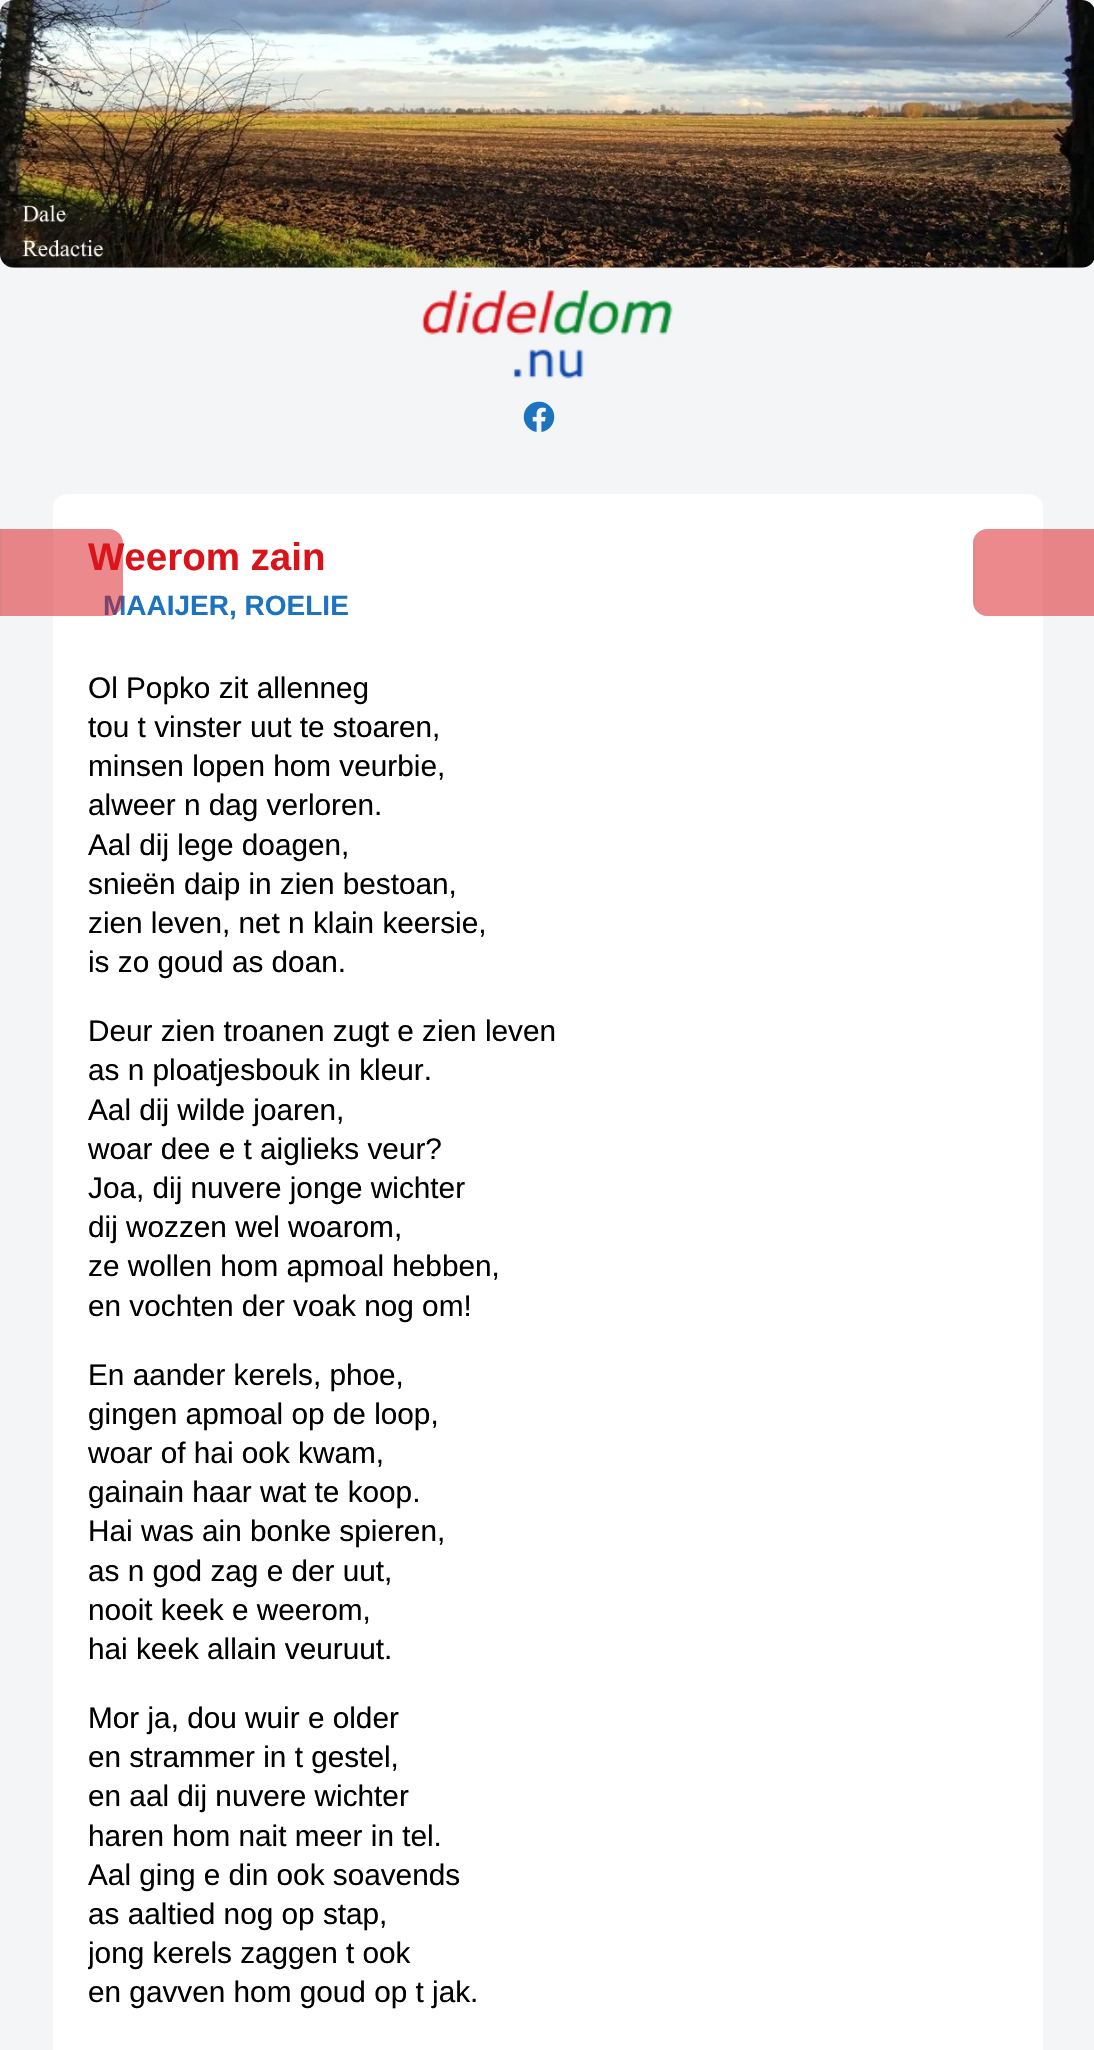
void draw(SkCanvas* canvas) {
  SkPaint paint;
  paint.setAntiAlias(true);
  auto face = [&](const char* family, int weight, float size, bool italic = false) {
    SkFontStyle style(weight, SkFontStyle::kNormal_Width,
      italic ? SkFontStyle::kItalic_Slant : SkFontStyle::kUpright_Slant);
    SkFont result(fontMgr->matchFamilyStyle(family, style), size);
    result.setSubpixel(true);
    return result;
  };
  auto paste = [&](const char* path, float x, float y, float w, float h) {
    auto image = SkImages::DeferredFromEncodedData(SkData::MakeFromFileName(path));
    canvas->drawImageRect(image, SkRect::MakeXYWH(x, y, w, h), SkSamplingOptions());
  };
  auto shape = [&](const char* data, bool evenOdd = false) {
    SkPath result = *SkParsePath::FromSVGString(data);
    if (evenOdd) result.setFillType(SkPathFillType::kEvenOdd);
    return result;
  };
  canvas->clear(0xfff3f5f7);
  paste("img/1.png", 0, 0, 1094, 268);
  paste("img/2.png", 421, 290, 252, 89);
  paste("img/3.png", 523, 401, 32, 31);
  paint.setColor(0xffffffff);
  canvas->drawRoundRect(SkRect::MakeXYWH(53, 494, 990, 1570), 14, 14, paint);
  paint.setColor(0x80da131a);
  canvas->drawPath(shape("M987 529H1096V616H987C979.5 616 973 609.5 973 602V543C973 535.5 979.5 529 987 529Z"), paint);
  paint.setColor(0x1a808080);
  canvas->drawPath(shape("M982 530C977 532 973 537 973 543V602C973 610 979 616 987 616H989C981 616 975 610 975 602V542C975 537 978 532 982 530Z"), paint);
  auto f0 = face("Liberation Sans", 700, 38.5f);
  paint.setColor(0xffda131a);
  canvas->drawString("Weerom zain", 88, 570, f0, paint);
  auto f1 = face("Liberation Sans", 700, 28);
  paint.setColor(0xff1e73be);
  canvas->drawString("MAAIJER, ROELIE", 103, 615, f1, paint);
  paint.setColor(0x80da131a);
  canvas->drawPath(shape("M0 529H109C116.5 529 123 535.5 123 543V602C123 609.5 116.5 616 109 616H0Z"), paint);
  paint.setColor(0xffdc8387);
  canvas->drawRect(SkRect::MakeXYWH(0, 529, 2, 87), paint);
  auto f2 = face("Liberation Sans", 400, 29.75f);
  paint.setColor(0xff000000);
  {
    const struct { const char* s; float x, y; } items[] = {
      {"Ol Popko zit allenneg", 88, 698},
      {"tou t vinster uut te stoaren,", 88, 737},
      {"minsen lopen hom veurbie,", 88, 776},
      {"alweer n dag verloren.", 88, 815},
      {"Aal dij lege doagen,", 88, 855},
      {"snieën daip in zien bestoan,", 88, 894},
      {"zien leven, net n klain keersie,", 88, 933},
      {"is zo goud as doan.", 88, 972},
      {"Deur zien troanen zugt e zien leven", 88, 1041},
      {"as n ploatjesbouk in kleur.", 88, 1080},
      {"Aal dij wilde joaren,", 88, 1120},
      {"woar dee e t aiglieks veur?", 88, 1159},
      {"Joa, dij nuvere jonge wichter", 88, 1198},
      {"dij wozzen wel woarom,", 88, 1237},
      {"ze wollen hom apmoal hebben,", 88, 1276},
      {"en vochten der voak nog om!", 88, 1316},
      {"En aander kerels, phoe,", 88, 1385},
      {"gingen apmoal op de loop,", 88, 1424},
      {"woar of hai ook kwam,", 88, 1463},
      {"gainain haar wat te koop.", 88, 1502},
      {"Hai was ain bonke spieren,", 88, 1541},
      {"as n god zag e der uut,", 88, 1581},
      {"nooit keek e weerom,", 88, 1620},
      {"hai keek allain veuruut.", 88, 1659},
      {"Mor ja, dou wuir e older", 88, 1728},
      {"en strammer in t gestel,", 88, 1767},
      {"en aal dij nuvere wichter", 88, 1806},
      {"haren hom nait meer in tel.", 88, 1846},
      {"Aal ging e din ook soavends", 88, 1885},
      {"as aaltied nog op stap,", 88, 1924},
    };
    for (auto [s, x, y] : items) {
      canvas->drawString(s, x, y, f2, paint);
    }
  }
  canvas->save();
  canvas->clipRect(SkRect::MakeXYWH(88, 670, 920, 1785));
  canvas->drawString("jong kerels zaggen t ook", 88, 1963, f2, paint);
  canvas->restore();
  canvas->drawString("en gavven hom goud op t jak.", 88, 2002, f2, paint);
}
